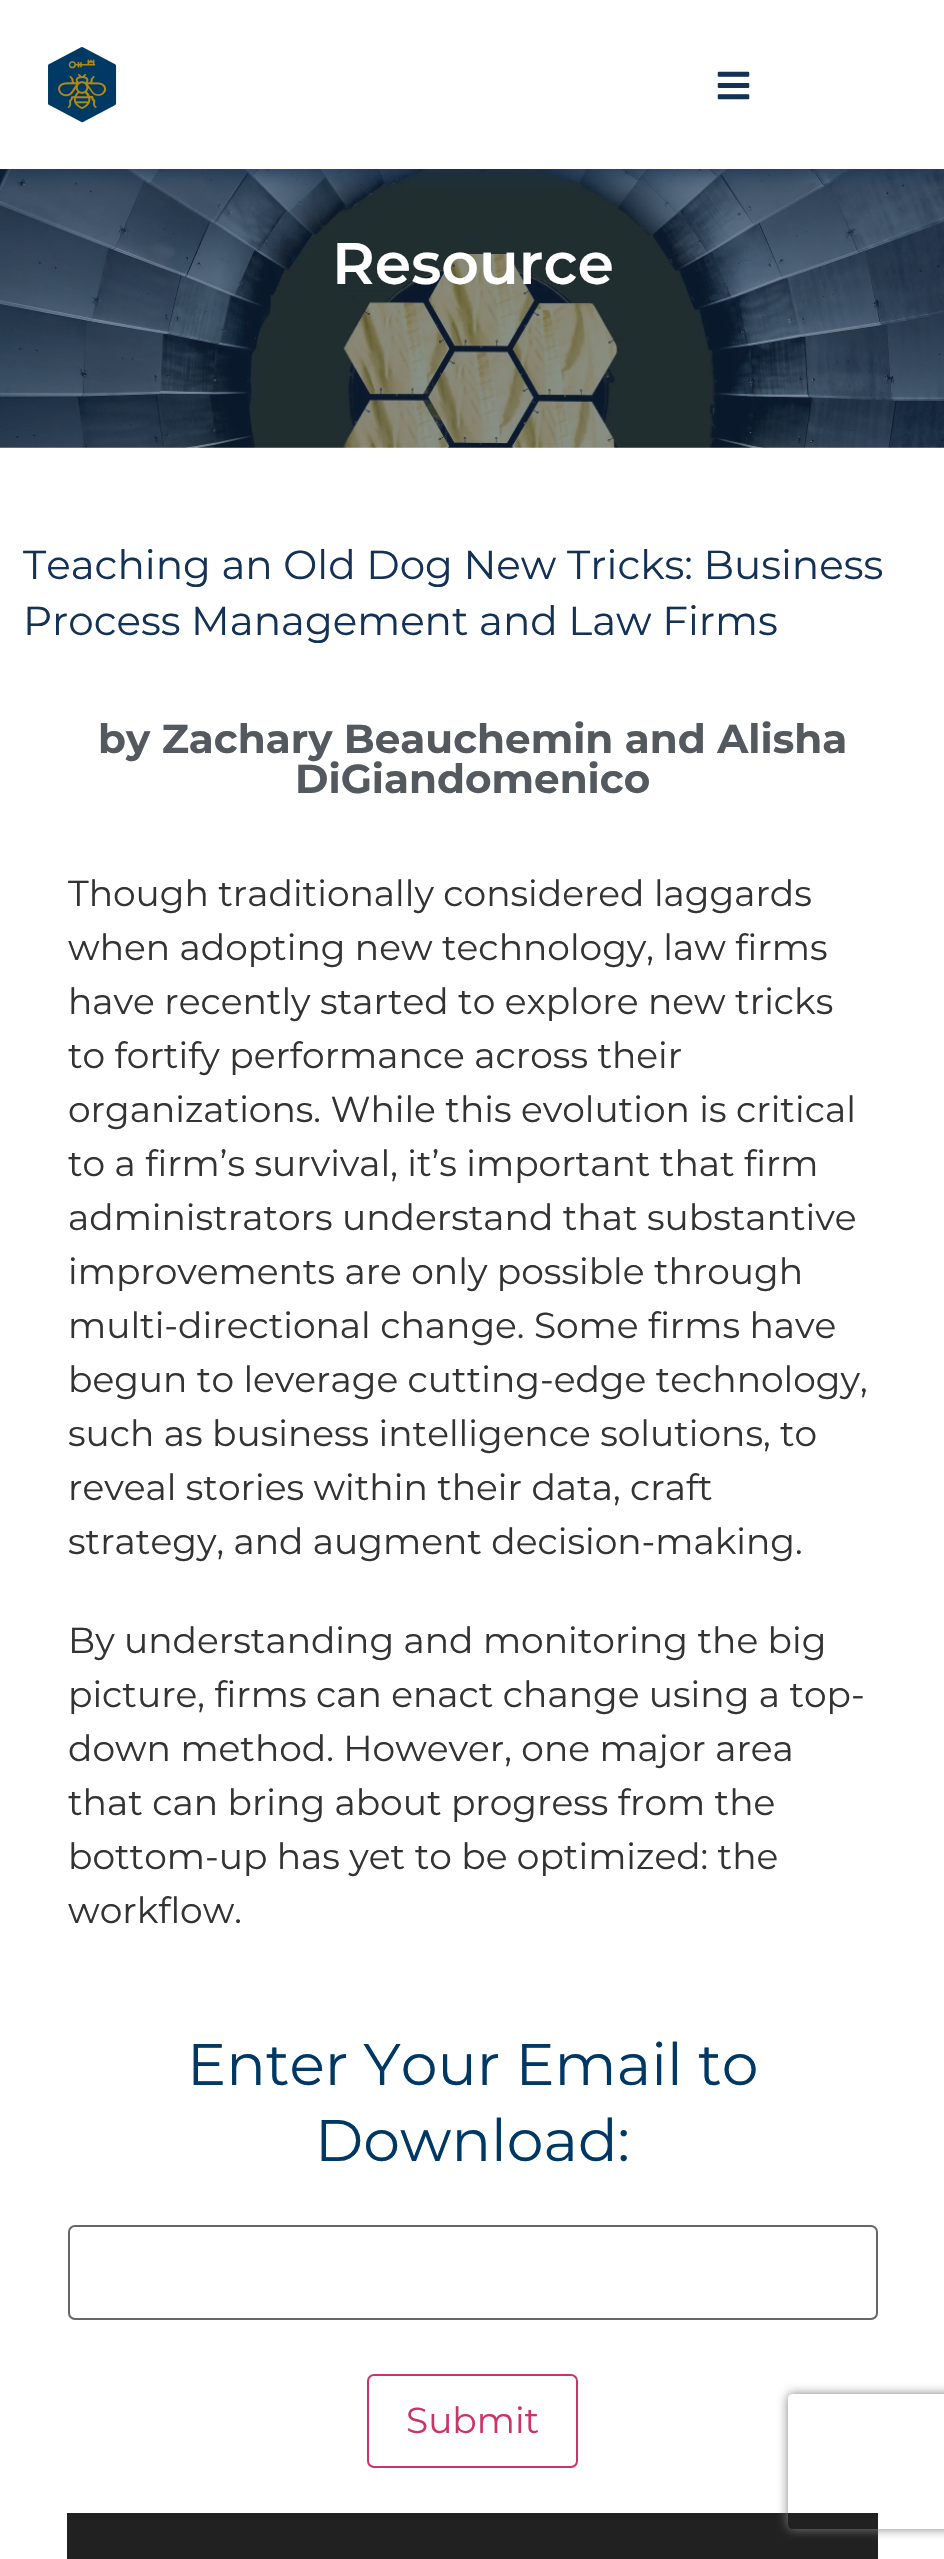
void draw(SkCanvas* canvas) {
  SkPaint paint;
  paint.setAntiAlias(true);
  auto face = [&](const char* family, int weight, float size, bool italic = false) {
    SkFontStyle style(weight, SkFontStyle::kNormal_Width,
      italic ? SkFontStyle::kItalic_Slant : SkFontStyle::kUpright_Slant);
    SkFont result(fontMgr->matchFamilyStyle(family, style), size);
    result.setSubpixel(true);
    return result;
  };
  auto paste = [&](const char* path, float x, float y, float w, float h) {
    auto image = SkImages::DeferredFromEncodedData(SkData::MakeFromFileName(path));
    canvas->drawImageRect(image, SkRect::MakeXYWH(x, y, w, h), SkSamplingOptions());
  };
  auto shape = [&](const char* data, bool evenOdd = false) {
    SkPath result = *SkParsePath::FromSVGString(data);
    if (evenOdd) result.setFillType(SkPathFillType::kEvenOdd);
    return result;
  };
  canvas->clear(0xffffffff);
  paste("img/3.png", 0, 169, 944, 279);
  paint.setColor(0xff143156);
  paint.setMaskFilter(SkMaskFilter::MakeBlur(kNormal_SkBlurStyle, 11));
  canvas->drawRect(SkRect::MakeXYWH(0, 0, 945, 169), paint);
  paint.setMaskFilter(nullptr);
  paint.setColor(0xffffffff);
  canvas->drawRect(SkRect::MakeXYWH(0, 0, 944, 169), paint);
  paste("img/1.png", 48, 47, 69, 76);
  paste("img/2.png", 717, 71, 33, 29);
  paint.setStroke(true);
  paint.setStrokeWidth(2);
  paint.setColor(0xff666666);
  canvas->drawRoundRect(SkRect::MakeXYWH(69, 2226, 808, 93), 6, 6, paint);
  paint.setColor(0xffcc3366);
  canvas->drawRoundRect(SkRect::MakeXYWH(368, 2375, 209, 92), 6, 6, paint);
  paint.setStroke(false);
  paint.setColor(0xff212121);
  canvas->drawRect(SkRect::MakeXYWH(67, 2513, 811, 46), paint);
  canvas->save();
  canvas->clipPath(shape("M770 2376H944V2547H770ZM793 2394H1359C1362 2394 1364 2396 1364 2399V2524C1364 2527 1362 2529 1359 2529H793C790 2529 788 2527 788 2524V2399C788 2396 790 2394 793 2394Z", true), true);
  paint.setColor(0xff808080);
  paint.setMaskFilter(SkMaskFilter::MakeBlur(kNormal_SkBlurStyle, 5.5f));
  canvas->drawRoundRect(SkRect::MakeXYWH(788, 2394, 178, 135), 5, 5, paint);
  paint.setMaskFilter(nullptr);
  canvas->restore();
  auto f0 = face("Montserrat", 600, 58.5f);
  paint.setColor(0xffffffff);
  canvas->drawString("Resource", 332, 284, f0, paint);
  auto f1 = face("Montserrat", 400, 40.5f);
  paint.setColor(0xff143156);
  canvas->drawString("Teaching an Old Dog New Tricks: Business", 23, 579, f1, paint);
  canvas->drawString("Process Management and Law Firms", 23, 635, f1, paint);
  auto f2 = face("Montserrat", 700, 40.5f);
  paint.setColor(0xff54595f);
  canvas->drawString("by Zachary Beauchemin and Alisha", 98, 753, f2, paint);
  canvas->drawString("DiGiandomenico", 295, 793, f2, paint);
  auto f3 = face("Montserrat", 400, 36);
  paint.setColor(0xff333333);
  {
    const struct { const char* s; float x, y; } items[] = {
      {"Though traditionally considered laggards", 68, 906},
      {"when adopting new technology, law firms", 68, 960},
      {"have recently started to explore new tricks", 68, 1014},
      {"to fortify performance across their", 68, 1068},
      {"organizations. While this evolution is critical", 68, 1122},
      {"to a firm’s survival, it’s important that firm", 68, 1176},
      {"administrators understand that substantive", 68, 1230},
      {"improvements are only possible through", 68, 1284},
      {"multi-directional change. Some firms have", 68, 1338},
      {"begun to leverage cutting-edge technology,", 68, 1392},
      {"such as business intelligence solutions, to", 68, 1446},
      {"reveal stories within their data, craft", 68, 1500},
      {"strategy, and augment decision-making.", 68, 1554},
      {"By understanding and monitoring the big", 68, 1653},
      {"picture, firms can enact change using a top-", 68, 1707},
      {"down method. However, one major area", 68, 1761},
      {"that can bring about progress from the", 68, 1815},
      {"bottom-up has yet to be optimized: the", 68, 1869},
      {"workflow.", 68, 1923},
    };
    for (auto [s, x, y] : items) {
      canvas->drawString(s, x, y, f3, paint);
    }
  }
  auto f4 = face("Montserrat", 400, 58.5f);
  paint.setColor(0xff003865);
  canvas->drawString("Enter Your Email to", 187, 2085, f4, paint);
  canvas->drawString("Download:", 315, 2161, f4, paint);
  paint.setColor(0xffcc3366);
  canvas->drawString("Submit", 406, 2433, f3, paint);
}
